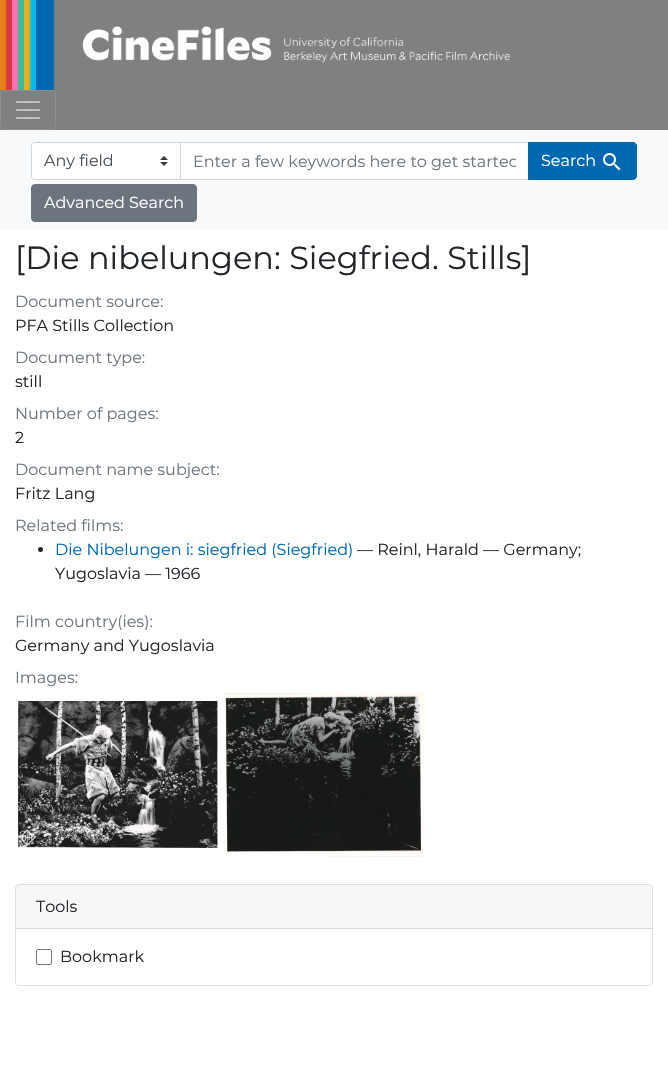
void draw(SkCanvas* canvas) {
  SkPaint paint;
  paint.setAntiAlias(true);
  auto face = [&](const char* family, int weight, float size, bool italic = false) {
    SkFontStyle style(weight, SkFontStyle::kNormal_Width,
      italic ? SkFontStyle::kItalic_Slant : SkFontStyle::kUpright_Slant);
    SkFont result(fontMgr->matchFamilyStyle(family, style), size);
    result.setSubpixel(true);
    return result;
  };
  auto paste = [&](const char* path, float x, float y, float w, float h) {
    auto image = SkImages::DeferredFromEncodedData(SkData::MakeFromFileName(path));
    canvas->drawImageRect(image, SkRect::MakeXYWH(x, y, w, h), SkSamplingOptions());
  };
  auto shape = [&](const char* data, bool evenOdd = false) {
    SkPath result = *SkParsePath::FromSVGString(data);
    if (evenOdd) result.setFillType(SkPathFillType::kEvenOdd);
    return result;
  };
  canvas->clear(0xffffffff);
  paint.setColor(0xff808080);
  canvas->drawRect(SkRect::MakeXYWH(0, 0, 668, 130), paint);
  paste("img/1.png", 0, 0, 511, 90);
  paint.setStroke(true);
  paint.setStrokeWidth(1);
  paint.setColor(0xff8d8d8d);
  canvas->drawRoundRect(SkRect::MakeXYWH(0.5f, 90.5f, 55, 39), 3.5f, 3.5f, paint);
  paste("img/2.png", 16, 101, 24, 18);
  paint.setStroke(false);
  paint.setColor(0xfff8f9fa);
  canvas->drawRect(SkRect::MakeXYWH(0, 130, 668, 100), paint);
  paint.setColor(0xffffffff);
  canvas->drawPath(shape("M35 142H181V180H35C33 180 31 178 31 176V146C31 144 33 142 35 142Z"), paint);
  paste("img/3.png", 160, 156, 8, 10);
  paint.setStroke(true);
  paint.setColor(0xffced4da);
  canvas->drawPath(shape("M35 142.5H180.5V179.5H35C33 179.5 31.5 178 31.5 176V146C31.5 144 33 142.5 35 142.5Z"), paint);
  paint.setStroke(false);
  paint.setColor(0xffffffff);
  canvas->drawRect(SkRect::MakeXYWH(180.5f, 142.5f, 348, 37), paint);
  paint.setStroke(true);
  paint.setColor(0xffced4da);
  canvas->drawRect(SkRect::MakeXYWH(180.5f, 142.5f, 348, 37), paint);
  paint.setStroke(false);
  paint.setColor(0xff0068af);
  canvas->drawPath(shape("M528.5 142.5H633C635 142.5 636.5 144 636.5 146V176C636.5 178 635 179.5 633 179.5H528.5Z"), paint);
  paint.setStroke(true);
  canvas->drawPath(shape("M528.5 142.5H633C635 142.5 636.5 144 636.5 146V176C636.5 178 635 179.5 633 179.5H528.5Z"), paint);
  paste("img/4.png", 603, 153, 18, 18);
  paint.setStroke(false);
  paint.setColor(0xff6c757d);
  canvas->drawRoundRect(SkRect::MakeXYWH(31.5f, 184.5f, 165, 37), 3.5f, 3.5f, paint);
  paint.setStroke(true);
  canvas->drawRoundRect(SkRect::MakeXYWH(31.5f, 184.5f, 165, 37), 3.5f, 3.5f, paint);
  paint.setStroke(false);
  paint.setColor(0xff212529);
  canvas->drawCircle(40.5f, 549.5f, 2.5f, paint);
  paste("img/5.png", 18, 701, 200, 147);
  paste("img/6.png", 224, 693, 200, 164);
  paint.setStroke(true);
  paint.setColor(0xffdfdfdf);
  canvas->drawRoundRect(SkRect::MakeXYWH(15.5f, 884.5f, 637, 101), 3.5f, 3.5f, paint);
  paint.setStroke(false);
  paint.setColor(0x08000000);
  canvas->drawRect(SkRect::MakeXYWH(16, 885, 636, 43), paint);
  paint.setColor(0xffd8d8d8);
  canvas->drawRect(SkRect::MakeXYWH(16, 928, 636, 1), paint);
  paint.setColor(0xffffffff);
  canvas->drawPath(shape("M16 929H652V982C652 983.5 650.5 985 649 985H19C17.5 985 16 983.5 16 982Z"), paint);
  paint.setStroke(true);
  paint.setColor(0xff767676);
  canvas->drawRoundRect(SkRect::MakeXYWH(36.5f, 949.5f, 15, 15), 1.5f, 1.5f, paint);
  auto f0 = face("Montserrat", 400, 16);
  paint.setStroke(false);
  paint.setColor(0xff495057);
  canvas->drawString("Any field", 44, 166, f0, paint);
  canvas->save();
  canvas->clipRect(SkRect::MakeXYWH(193, 152, 323, 19));
  paint.setColor(0xff6c757d);
  canvas->drawString("Enter a few keywords here to get started", 193, 167, f0, paint);
  canvas->restore();
  paint.setColor(0xffffffff);
  canvas->drawString("Search", 541, 166, f0, paint);
  canvas->drawString("Advanced Search", 44, 208, f0, paint);
  auto f1 = face("Montserrat", 400, 32);
  paint.setColor(0xff212529);
  canvas->drawString("[Die nibelungen: Siegfried. Stills]", 15, 269, f1, paint);
  paint.setColor(0xff6c757d);
  canvas->drawString("Document source:", 15, 307, f0, paint);
  paint.setColor(0xff212529);
  canvas->drawString("PFA Stills Collection", 15, 331, f0, paint);
  paint.setColor(0xff6c757d);
  canvas->drawString("Document type:", 15, 363, f0, paint);
  paint.setColor(0xff212529);
  canvas->drawString("still", 15, 387, f0, paint);
  paint.setColor(0xff6c757d);
  canvas->drawString("Number of pages:", 15, 419, f0, paint);
  paint.setColor(0xff212529);
  canvas->drawString("2", 15, 443, f0, paint);
  paint.setColor(0xff6c757d);
  canvas->drawString("Document name subject:", 15, 475, f0, paint);
  paint.setColor(0xff212529);
  canvas->drawString("Fritz Lang", 15, 499, f0, paint);
  paint.setColor(0xff6c757d);
  canvas->drawString("Related films:", 15, 531, f0, paint);
  paint.setColor(0xff0068af);
  canvas->drawString("Die Nibelungen i: siegfried (Siegfried)", 55, 555, f0, paint);
  paint.setColor(0xff212529);
  canvas->drawString("— Reinl, Harald — Germany;", 357, 555, f0, paint);
  canvas->drawString("Yugoslavia — 1966", 55, 579, f0, paint);
  paint.setColor(0xff6c757d);
  canvas->drawString("Film country(ies):", 15, 627, f0, paint);
  paint.setColor(0xff212529);
  canvas->drawString("Germany and Yugoslavia", 15, 651, f0, paint);
  paint.setColor(0xff6c757d);
  canvas->drawString("Images:", 15, 683, f0, paint);
  paint.setColor(0xff212529);
  canvas->drawString("Tools", 36, 912, f0, paint);
  canvas->drawString("Bookmark", 60, 962, f0, paint);
}
